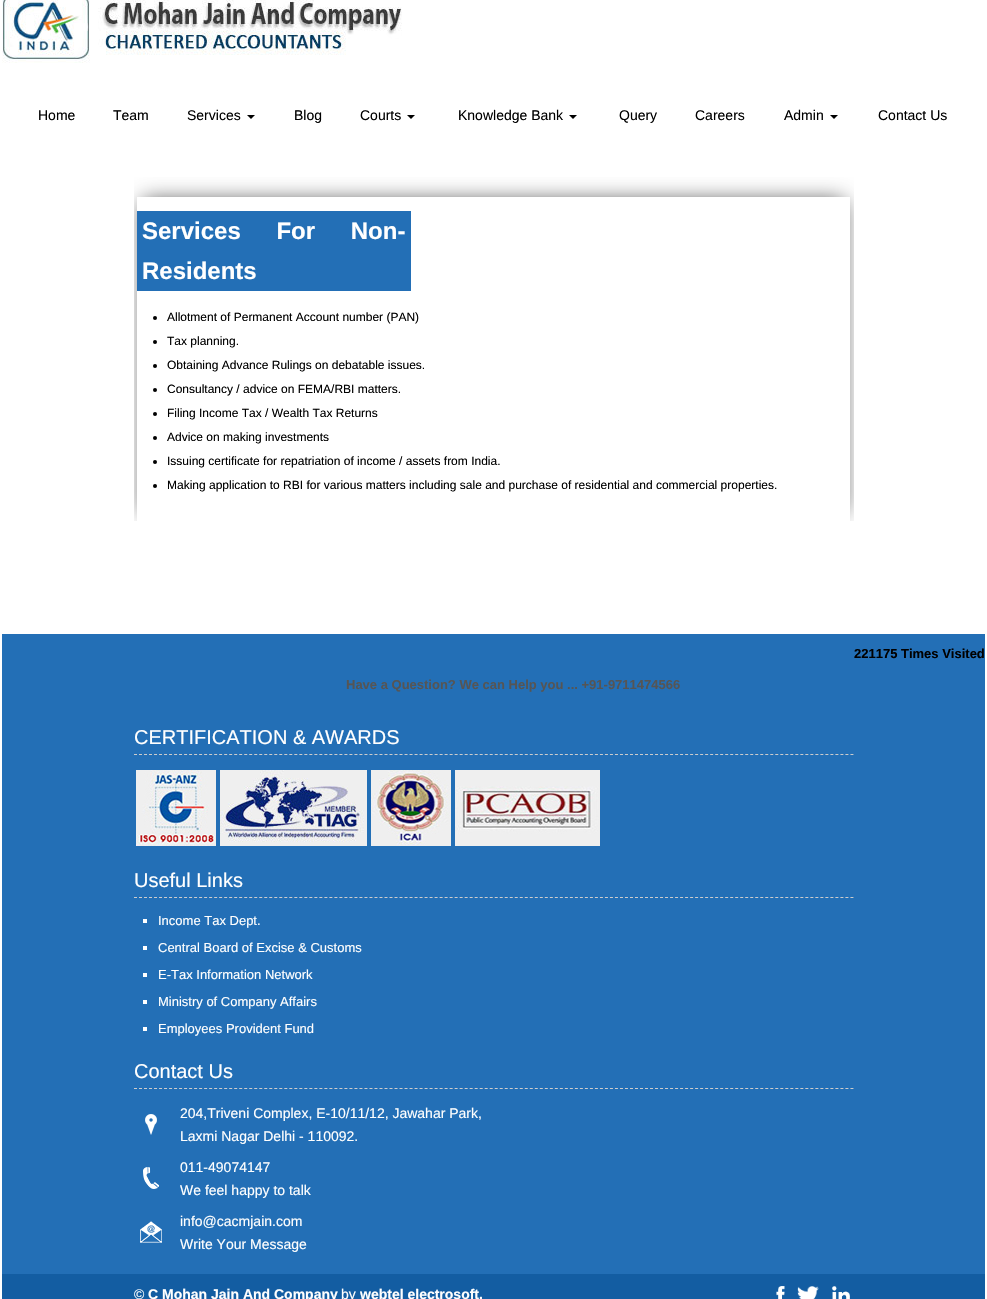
void draw(SkCanvas* canvas) {
  SkPaint paint;
  paint.setAntiAlias(true);
  auto face = [&](const char* family, int weight, float size, bool italic = false) {
    SkFontStyle style(weight, SkFontStyle::kNormal_Width,
      italic ? SkFontStyle::kItalic_Slant : SkFontStyle::kUpright_Slant);
    SkFont result(fontMgr->matchFamilyStyle(family, style), size);
    result.setSubpixel(true);
    return result;
  };
  auto writeSpaced = [&](const char* s, float x, float y, const SkFont& font, const SkPaint& ink, float letter, float word) {
    std::vector<SkGlyphID> glyphs(font.countText(s, strlen(s), SkTextEncoding::kUTF8));
    std::vector<float> xs(glyphs.size());
    font.textToGlyphs(s, strlen(s), SkTextEncoding::kUTF8, glyphs);
    font.getXPos(glyphs, xs, x);
    float extra = 0;
    for (size_t i = 0; i < glyphs.size(); i++) {
      xs[i] += extra;
      extra += letter + word * (glyphs[i] == font.unicharToGlyph(' '));
    }
    canvas->drawTextBlob(SkTextBlob::MakeFromPosHGlyphs(glyphs, xs, y, font), 0, 0, ink);
  };
  auto paste = [&](const char* path, float x, float y, float w, float h) {
    auto image = SkImages::DeferredFromEncodedData(SkData::MakeFromFileName(path));
    canvas->drawImageRect(image, SkRect::MakeXYWH(x, y, w, h), SkSamplingOptions());
  };
  auto shape = [&](const char* data, bool evenOdd = false) {
    SkPath result = *SkParsePath::FromSVGString(data);
    if (evenOdd) result.setFillType(SkPathFillType::kEvenOdd);
    return result;
  };
  canvas->clear(0xffffffff);
  paste("img/1.png", 2, 0, 400, 63);
  paint.setColor(0xff000000);
  canvas->drawPath(shape("M247 115H255L251 119Z"), paint);
  canvas->drawPath(shape("M407 115H415L411 119Z"), paint);
  canvas->drawPath(shape("M569 115H577L573 119Z"), paint);
  canvas->drawPath(shape("M830 115H838L834 119Z"), paint);
  canvas->save();
  canvas->clipRect(SkRect::MakeXYWH(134, 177, 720, 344));
  canvas->clipPath(shape("M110 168H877V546H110ZM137 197H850V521H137Z", true), true);
  paint.setColor(0xbf000000);
  paint.setMaskFilter(SkMaskFilter::MakeBlur(kNormal_SkBlurStyle, 10.5f));
  canvas->drawRect(SkRect::MakeXYWH(143, 201, 701, 312), paint);
  paint.setMaskFilter(nullptr);
  canvas->restore();
  paint.setColor(0xff236fb6);
  canvas->drawRect(SkRect::MakeXYWH(137, 211, 274, 80), paint);
  paint.setColor(0xff000000);
  canvas->drawCircle(155, 318, 2, paint);
  canvas->drawCircle(155, 342, 2, paint);
  canvas->drawCircle(155, 366, 2, paint);
  canvas->drawCircle(155, 390, 2, paint);
  canvas->drawCircle(155, 414, 2, paint);
  canvas->drawCircle(155, 438, 2, paint);
  canvas->drawCircle(155, 462, 2, paint);
  canvas->drawCircle(155, 486, 2, paint);
  paint.setColor(0xff236fb6);
  canvas->drawRect(SkRect::MakeXYWH(2, 634, 983, 640), paint);
  paint.setStroke(true);
  paint.setStrokeWidth(1);
  paint.setColor(0xffcccccc);
  paint.setPathEffect(SkDashPathEffect::Make({{3, 2.01f}}, 0));
  canvas->drawPath(shape("M134 754.5H854"), paint);
  paint.setPathEffect(nullptr);
  paste("img/2.png", 136, 770, 80, 76);
  paste("img/3.png", 220, 770, 147, 76);
  paste("img/4.png", 371, 770, 80, 76);
  paste("img/5.png", 455, 770, 145, 76);
  paint.setPathEffect(SkDashPathEffect::Make({{3, 2.01f}}, 0));
  canvas->drawPath(shape("M134 897.5H854"), paint);
  paint.setPathEffect(nullptr);
  paint.setStroke(false);
  {
    const struct { float x, y, w, h; SkColor color; } items[] = {
      {143, 919, 4, 4, 0xffffffff},
      {143, 946, 4, 4, 0xffffffff},
      {143, 973, 4, 4, 0xffffffff},
      {143, 1000, 4, 4, 0xffffffff},
      {143, 1027, 4, 4, 0xffffffff},
    };
    for (auto [x, y, w, h, color] : items) {
      paint.setColor(color);
      canvas->drawRect(SkRect::MakeXYWH(x, y, w, h), paint);
    }
  }
  paint.setStroke(true);
  paint.setColor(0xffcccccc);
  paint.setPathEffect(SkDashPathEffect::Make({{3, 2.01f}}, 0));
  canvas->drawPath(shape("M134 1088.5H854"), paint);
  paint.setPathEffect(nullptr);
  paste("img/6.png", 145, 1114, 12, 21);
  paste("img/7.png", 143, 1167, 16, 22);
  paste("img/8.png", 140, 1221, 22, 22);
  paint.setStroke(false);
  paint.setColor(0xff135da2);
  canvas->drawRect(SkRect::MakeXYWH(2, 1274, 983, 25), paint);
  paste("img/9.png", 776, 1286, 9, 13);
  paste("img/10.png", 797, 1286, 22, 13);
  paste("img/11.png", 831, 1286, 19, 13);
  auto f0 = face("Liberation Sans", 400, 14);
  paint.setColor(0xff000000);
  {
    const struct { const char* s; float x, y; } items[] = {
      {"Home", 38, 120},
      {"Team", 113, 120},
      {"Services", 187, 120},
      {"Blog", 294, 120},
      {"Courts", 360, 120},
      {"Knowledge Bank", 458, 120},
      {"Query", 619, 120},
      {"Careers", 695, 120},
      {"Admin", 784, 120},
      {"Contact Us", 878, 120},
    };
    for (auto [s, x, y] : items) {
      canvas->drawString(s, x, y, f0, paint);
    }
  }
  auto f1 = face("Liberation Sans", 700, 24);
  paint.setColor(0xffffffff);
  writeSpaced("Services For Non-", 142, 239, f1, paint, 0, 29);
  canvas->drawString("Residents", 142, 279, f1, paint);
  auto f2 = face("Liberation Sans", 400, 12);
  paint.setColor(0xff000000);
  {
    const struct { const char* s; float x, y; } items[] = {
      {"Allotment of Permanent Account number (PAN)", 167, 321},
      {"Tax planning.", 167, 345},
      {"Obtaining Advance Rulings on debatable issues.", 167, 369},
      {"Consultancy / advice on FEMA/RBI matters.", 167, 393},
      {"Filing Income Tax / Wealth Tax Returns", 167, 417},
      {"Advice on making investments", 167, 441},
      {"Issuing certificate for repatriation of income / assets from India.", 167, 465},
      {"Making application to RBI for various matters including sale and purchase of residential and commercial properties.", 167, 489},
    };
    for (auto [s, x, y] : items) {
      canvas->drawString(s, x, y, f2, paint);
    }
  }
  auto f3 = face("Liberation Sans", 700, 13);
  canvas->drawString("221175 Times Visited", 854, 658, f3, paint);
  paint.setColor(0xff555555);
  canvas->drawString("Have a Question? We can Help you ... +91-9711474566", 346, 689, f3, paint);
  auto f4 = face("Liberation Sans", 400, 20);
  paint.setColor(0xffffffff);
  canvas->drawString("CERTIFICATION & AWARDS", 134, 744, f4, paint);
  canvas->drawString("Useful Links", 134, 887, f4, paint);
  auto f5 = face("Liberation Sans", 400, 13);
  {
    const struct { const char* s; float x, y; } items[] = {
      {"Income Tax Dept.", 158, 925},
      {"Central Board of Excise & Customs", 158, 952},
      {"E-Tax Information Network", 158, 979},
      {"Ministry of Company Affairs", 158, 1006},
      {"Employees Provident Fund", 158, 1033},
    };
    for (auto [s, x, y] : items) {
      canvas->drawString(s, x, y, f5, paint);
    }
  }
  canvas->drawString("Contact Us", 134, 1078, f4, paint);
  {
    const struct { const char* s; float x, y; } items[] = {
      {"204,Triveni Complex, E-10/11/12, Jawahar Park,", 180, 1118},
      {"Laxmi Nagar Delhi - 110092.", 180, 1141},
      {"011-49074147", 180, 1172},
      {"We feel happy to talk", 180, 1195},
      {"info@cacmjain.com", 180, 1226},
      {"Write Your Message", 180, 1249},
      {"©", 134, 1299},
    };
    for (auto [s, x, y] : items) {
      canvas->drawString(s, x, y, f0, paint);
    }
  }
  auto f6 = face("Liberation Sans", 700, 14);
  canvas->drawString("C Mohan Jain And Company", 148, 1299, f6, paint);
  canvas->drawString("by", 341, 1299, f0, paint);
  canvas->drawString("webtel electrosoft.", 360, 1299, f6, paint);
}
